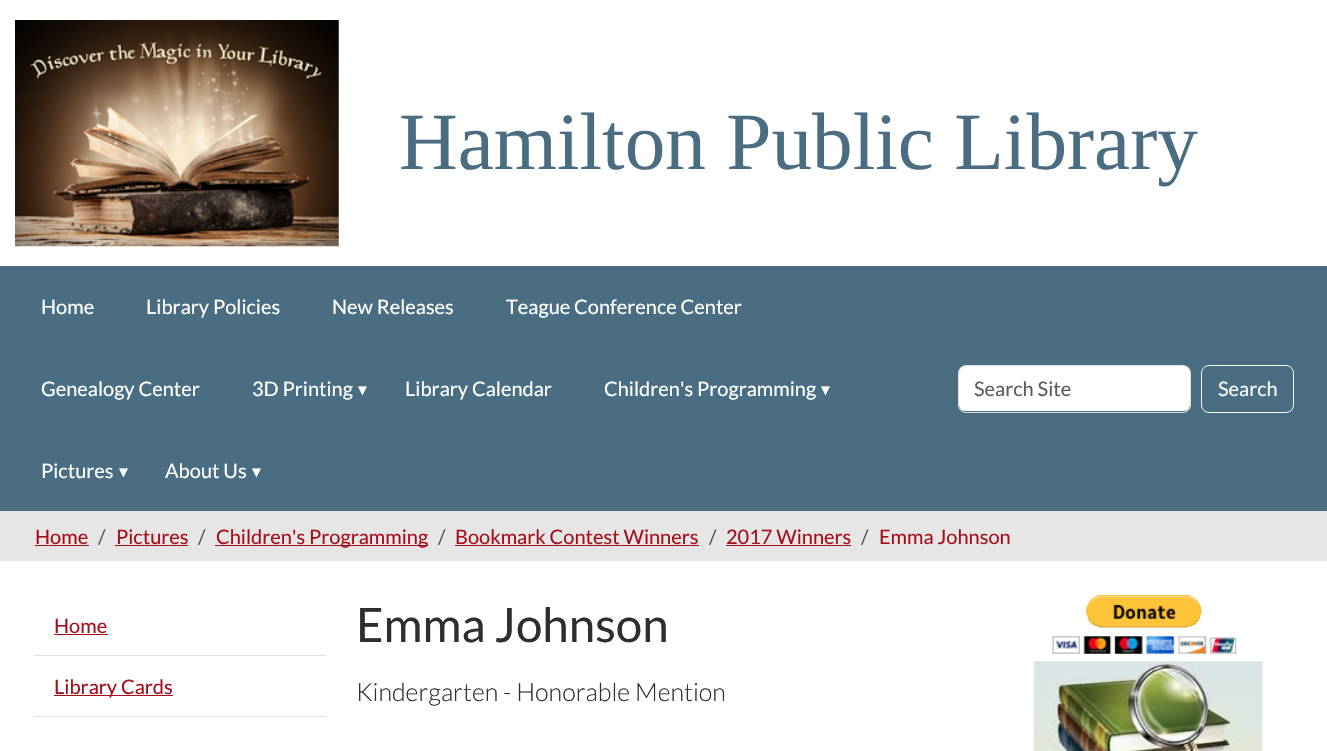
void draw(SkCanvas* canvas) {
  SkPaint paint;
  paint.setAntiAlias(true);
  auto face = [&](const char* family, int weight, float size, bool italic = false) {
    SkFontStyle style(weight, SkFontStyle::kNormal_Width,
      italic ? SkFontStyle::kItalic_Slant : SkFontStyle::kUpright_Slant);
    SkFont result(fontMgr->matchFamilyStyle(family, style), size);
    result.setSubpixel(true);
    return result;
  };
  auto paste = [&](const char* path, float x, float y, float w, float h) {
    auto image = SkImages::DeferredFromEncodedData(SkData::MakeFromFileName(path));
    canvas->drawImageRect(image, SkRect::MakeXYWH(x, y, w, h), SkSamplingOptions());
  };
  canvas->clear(0xffffffff);
  paste("img/1.png", 15, 20, 324, 227);
  paint.setColor(0xff4b6d81);
  canvas->drawRect(SkRect::MakeXYWH(0, 266, 1327, 245), paint);
  paint.setColor(0xffffffff);
  canvas->drawRoundRect(SkRect::MakeXYWH(959, 366, 231, 45), 6, 6, paint);
  paint.setStroke(true);
  paint.setStrokeWidth(1);
  paint.setColor(0xffdee2e6);
  canvas->drawRoundRect(SkRect::MakeXYWH(958.5f, 365.5f, 232, 47), 7.5f, 7.5f, paint);
  paint.setColor(0xfff8f9fa);
  canvas->drawRoundRect(SkRect::MakeXYWH(1201.5f, 365.5f, 92, 47), 7.5f, 7.5f, paint);
  paint.setStroke(false);
  {
    const struct { float x, y, w, h; SkColor color; } items[] = {
      {0, 511, 1327, 50, 0xffe6e6e6},
      {35, 545, 54, 1, 0xffa60e1a},
      {115, 545, 73, 1, 0xffa60e1a},
      {215, 545, 213, 1, 0xffa60e1a},
      {455, 545, 244, 1, 0xffa60e1a},
      {726, 545, 125, 1, 0xffa60e1a},
      {54, 634, 54, 1, 0xffa60e1a},
      {34, 655, 292, 1, 0xffdee2e6},
      {54, 695, 119, 1, 0xffa60e1a},
      {34, 716, 292, 1, 0xffdee2e6},
    };
    for (auto [x, y, w, h, color] : items) {
      paint.setColor(color);
      canvas->drawRect(SkRect::MakeXYWH(x, y, w, h), paint);
    }
  }
  paste("img/2.png", 1052, 595, 185, 59);
  paste("img/3.png", 1033, 661, 230, 90);
  auto f0 = face("Liberation Serif", 400, 81.25f);
  paint.setColor(0xff4b6d81);
  canvas->drawString("Hamilton Public Library", 399, 169, f0, paint);
  auto f1 = face("Lato", 400, 20);
  paint.setColor(0xffffffff);
  {
    const struct { const char* s; float x, y; } items[] = {
      {"Home", 41, 314},
      {"Library Policies", 146, 314},
      {"New Releases", 332, 314},
      {"Teague Conference Center", 506, 314},
      {"Genealogy Center", 41, 396},
      {"3D Printing", 252, 396},
    };
    for (auto [s, x, y] : items) {
      canvas->drawString(s, x, y, f1, paint);
    }
  }
  auto f2 = face("Liberation Sans", 400, 15);
  canvas->drawString("▼", 355, 395, f2, paint);
  canvas->drawString("Library Calendar", 405, 396, f1, paint);
  canvas->drawString("Children's Programming", 604, 396, f1, paint);
  canvas->drawString("▼", 818, 395, f2, paint);
  canvas->drawString("Pictures", 41, 478, f1, paint);
  canvas->drawString("▼", 116, 477, f2, paint);
  canvas->drawString("About Us", 165, 478, f1, paint);
  canvas->drawString("▼", 249, 477, f2, paint);
  paint.setColor(0xff595c5f);
  canvas->drawString("Search Site", 974, 396, f1, paint);
  paint.setColor(0xfff8f9fa);
  canvas->drawString("Search", 1218, 396, f1, paint);
  paint.setColor(0xffa60e1a);
  canvas->drawString("Home", 35, 544, f1, paint);
  paint.setColor(0xff525558);
  canvas->drawString("/", 98, 544, f1, paint);
  paint.setColor(0xffa60e1a);
  canvas->drawString("Pictures", 116, 544, f1, paint);
  paint.setColor(0xff525558);
  canvas->drawString("/", 198, 544, f1, paint);
  paint.setColor(0xffa60e1a);
  canvas->drawString("Children's Programming", 216, 544, f1, paint);
  paint.setColor(0xff525558);
  canvas->drawString("/", 438, 544, f1, paint);
  paint.setColor(0xffa60e1a);
  canvas->drawString("Bookmark Contest Winners", 455, 544, f1, paint);
  paint.setColor(0xff525558);
  canvas->drawString("/", 709, 544, f1, paint);
  paint.setColor(0xffa60e1a);
  canvas->drawString("2017 Winners", 726, 544, f1, paint);
  paint.setColor(0xff525558);
  canvas->drawString("/", 861, 544, f1, paint);
  paint.setColor(0xffa60e1a);
  {
    const struct { const char* s; float x, y; } items[] = {
      {"Emma Johnson", 879, 544},
      {"Home", 54, 633},
      {"Library Cards", 54, 694},
    };
    for (auto [s, x, y] : items) {
      canvas->drawString(s, x, y, f1, paint);
    }
  }
  auto f3 = face("Lato", 400, 47.5f);
  paint.setColor(0xff2e2e2e);
  canvas->drawString("Emma Johnson", 356, 642, f3, paint);
  auto f4 = face("Lato", 300, 25);
  canvas->drawString("Kindergarten - Honorable Mention", 356, 701, f4, paint);
}
